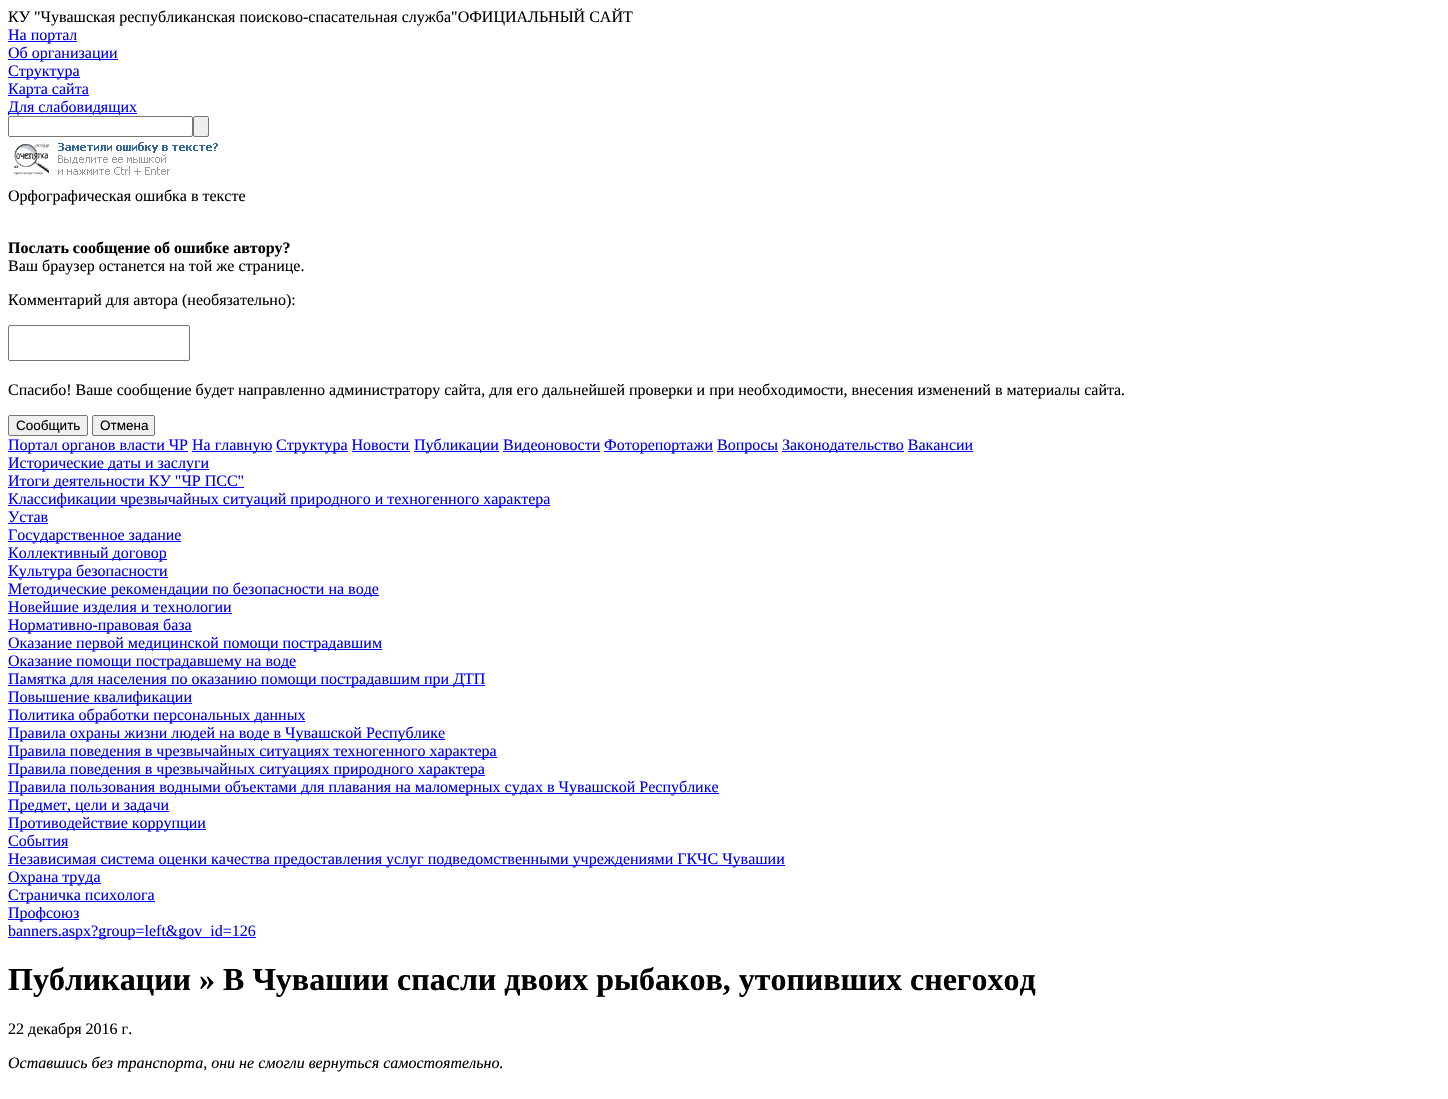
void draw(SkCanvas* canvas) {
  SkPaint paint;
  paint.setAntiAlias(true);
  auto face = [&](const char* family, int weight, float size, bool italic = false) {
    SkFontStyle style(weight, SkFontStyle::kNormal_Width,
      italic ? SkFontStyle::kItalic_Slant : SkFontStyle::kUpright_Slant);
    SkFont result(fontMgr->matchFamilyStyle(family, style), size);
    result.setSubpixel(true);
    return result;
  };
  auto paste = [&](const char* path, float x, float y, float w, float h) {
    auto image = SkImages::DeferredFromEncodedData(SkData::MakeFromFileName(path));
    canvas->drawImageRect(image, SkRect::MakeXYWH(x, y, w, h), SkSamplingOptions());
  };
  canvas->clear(0xffffffff);
  {
    const struct { float x, y, w, h; SkColor color; } items[] = {
      {8, 41, 69, 1, 0xff0000ee},
      {8, 59, 110, 1, 0xff0000ee},
      {8, 77, 72, 1, 0xff0000ee},
      {8, 95, 81, 1, 0xff0000ee},
      {8, 113, 129, 1, 0xff0000ee},
    };
    for (auto [x, y, w, h, color] : items) {
      paint.setColor(color);
      canvas->drawRect(SkRect::MakeXYWH(x, y, w, h), paint);
    }
  }
  paint.setStroke(true);
  paint.setStrokeWidth(1);
  paint.setColor(0xff767676);
  canvas->drawRoundRect(SkRect::MakeXYWH(8.5f, 116.5f, 184, 20), 1.5f, 1.5f, paint);
  paint.setStroke(false);
  paint.setColor(0xffefefef);
  canvas->drawRoundRect(SkRect::MakeXYWH(193.5f, 116.5f, 15, 20), 1.5f, 1.5f, paint);
  paint.setStroke(true);
  paint.setColor(0xff767676);
  canvas->drawRoundRect(SkRect::MakeXYWH(193.5f, 116.5f, 15, 20), 1.5f, 1.5f, paint);
  paste("img/1.png", 14, 142, 204, 33);
  canvas->drawRoundRect(SkRect::MakeXYWH(8.5f, 325.5f, 181, 35), 1.5f, 1.5f, paint);
  paint.setStroke(false);
  paint.setColor(0xffefefef);
  canvas->drawRoundRect(SkRect::MakeXYWH(8.5f, 415.5f, 79, 20), 1.5f, 1.5f, paint);
  paint.setStroke(true);
  paint.setColor(0xff767676);
  canvas->drawRoundRect(SkRect::MakeXYWH(8.5f, 415.5f, 79, 20), 1.5f, 1.5f, paint);
  paint.setStroke(false);
  paint.setColor(0xffefefef);
  canvas->drawRoundRect(SkRect::MakeXYWH(92.5f, 415.5f, 62, 20), 1.5f, 1.5f, paint);
  paint.setStroke(true);
  paint.setColor(0xff767676);
  canvas->drawRoundRect(SkRect::MakeXYWH(92.5f, 415.5f, 62, 20), 1.5f, 1.5f, paint);
  paint.setStroke(false);
  {
    const struct { float x, y, w, h; SkColor color; } items[] = {
      {8, 451, 180, 1, 0xff0000ee},
      {192, 451, 80, 1, 0xff0000ee},
      {276, 451, 72, 1, 0xff0000ee},
      {414, 451, 85, 1, 0xff0000ee},
      {503, 451, 97, 1, 0xff0000ee},
      {604, 451, 109, 1, 0xff0000ee},
      {717, 451, 61, 1, 0xff0000ee},
      {782, 451, 122, 1, 0xff0000ee},
      {352, 451, 58, 1, 0xff0000ee},
      {908, 451, 65, 1, 0xff0000ee},
      {8, 469, 201, 1, 0xff0000ee},
      {8, 487, 236, 1, 0xff0000ee},
      {8, 505, 542, 1, 0xff0000ee},
      {8, 523, 40, 1, 0xff0000ee},
      {8, 541, 173, 1, 0xff0000ee},
      {8, 559, 159, 1, 0xff0000ee},
      {8, 577, 160, 1, 0xff0000ee},
      {8, 595, 371, 1, 0xff0000ee},
      {8, 613, 224, 1, 0xff0000ee},
      {8, 631, 184, 1, 0xff0000ee},
      {8, 649, 374, 1, 0xff0000ee},
      {8, 667, 288, 1, 0xff0000ee},
      {8, 685, 477, 1, 0xff0000ee},
      {8, 703, 184, 1, 0xff0000ee},
      {8, 721, 297, 1, 0xff0000ee},
      {8, 739, 437, 1, 0xff0000ee},
      {8, 757, 489, 1, 0xff0000ee},
      {8, 775, 477, 1, 0xff0000ee},
      {8, 793, 711, 1, 0xff0000ee},
      {8, 811, 161, 1, 0xff0000ee},
      {8, 829, 198, 1, 0xff0000ee},
      {8, 847, 60, 1, 0xff0000ee},
      {8, 865, 777, 1, 0xff0000ee},
      {8, 883, 93, 1, 0xff0000ee},
      {8, 901, 147, 1, 0xff0000ee},
      {8, 919, 71, 1, 0xff0000ee},
      {8, 937, 248, 1, 0xff0000ee},
    };
    for (auto [x, y, w, h, color] : items) {
      paint.setColor(color);
      canvas->drawRect(SkRect::MakeXYWH(x, y, w, h), paint);
    }
  }
  auto f0 = face("Liberation Serif", 400, 16);
  paint.setColor(0xff000000);
  canvas->drawString("КУ \"Чувашская республиканская поисково-спасательная служба\"ОФИЦИАЛЬНЫЙ САЙТ", 8, 22, f0, paint);
  paint.setColor(0xff0000ee);
  {
    const struct { const char* s; float x, y; } items[] = {
      {"На портал", 8, 40},
      {"Об организации", 8, 58},
      {"Структура", 8, 76},
      {"Карта сайта", 8, 94},
      {"Для слабовидящих", 8, 112},
    };
    for (auto [s, x, y] : items) {
      canvas->drawString(s, x, y, f0, paint);
    }
  }
  paint.setColor(0xff000000);
  canvas->drawString("Орфографическая ошибка в тексте", 8, 201, f0, paint);
  auto f1 = face("Liberation Serif", 700, 16);
  canvas->drawString("Послать сообщение об ошибке автору?", 8, 253, f1, paint);
  {
    const struct { const char* s; float x, y; } items[] = {
      {"Ваш браузер останется на той же странице.", 8, 271},
      {"Комментарий для автора (необязательно):", 8, 305},
      {"Спасибо! Ваше сообщение будет направленно администратору сайта, для его дальнейшей проверки и при необходимости, внесения изменений в материалы сайта.", 8, 395},
    };
    for (auto [s, x, y] : items) {
      canvas->drawString(s, x, y, f0, paint);
    }
  }
  auto f2 = face("Liberation Sans", 400, 13.5f);
  canvas->drawString("Сообщить", 16, 430, f2, paint);
  canvas->drawString("Отмена", 100, 430, f2, paint);
  paint.setColor(0xff0000ee);
  {
    const struct { const char* s; float x, y; } items[] = {
      {"Портал органов власти ЧР", 8, 450},
      {"На главную", 192, 450},
      {"Структура Новости", 276, 450},
      {"Публикации", 414, 450},
      {"Видеоновости", 503, 450},
      {"Фоторепортажи", 604, 450},
      {"Вопросы", 717, 450},
      {"Законодательство Вакансии", 782, 450},
      {"Исторические даты и заслуги", 8, 468},
      {"Итоги деятельности КУ \"ЧР ПСС\"", 8, 486},
      {"Классификации чрезвычайных ситуаций природного и техногенного характера", 8, 504},
      {"Устав", 8, 522},
      {"Государственное задание", 8, 540},
      {"Коллективный договор", 8, 558},
      {"Культура безопасности", 8, 576},
      {"Методические рекомендации по безопасности на воде", 8, 594},
      {"Новейшие изделия и технологии", 8, 612},
      {"Нормативно-правовая база", 8, 630},
      {"Оказание первой медицинской помощи пострадавшим", 8, 648},
      {"Оказание помощи пострадавшему на воде", 8, 666},
      {"Памятка для населения по оказанию помощи пострадавшим при ДТП", 8, 684},
      {"Повышение квалификации", 8, 702},
      {"Политика обработки персональных данных", 8, 720},
      {"Правила охраны жизни людей на воде в Чувашской Республике", 8, 738},
      {"Правила поведения в чрезвычайных ситуациях техногенного характера", 8, 756},
      {"Правила поведения в чрезвычайных ситуациях природного характера", 8, 774},
      {"Правила пользования водными объектами для плавания на маломерных судах в Чувашской Республике", 8, 792},
      {"Предмет, цели и задачи", 8, 810},
      {"Противодействие коррупции", 8, 828},
      {"События", 8, 846},
      {"Независимая система оценки качества предоставления услуг подведомственными учреждениями ГКЧС Чувашии", 8, 864},
      {"Охрана труда", 8, 882},
      {"Страничка психолога", 8, 900},
      {"Профсоюз", 8, 918},
      {"banners.aspx?group=left&gov_id=126", 8, 936},
    };
    for (auto [s, x, y] : items) {
      canvas->drawString(s, x, y, f0, paint);
    }
  }
  auto f3 = face("Liberation Serif", 700, 32);
  paint.setColor(0xff000000);
  canvas->drawString("Публикации » В Чувашии спасли двоих рыбаков, утопивших снегоход", 8, 990, f3, paint);
  canvas->drawString("22 декабря 2016 г.", 8, 1034, f0, paint);
  auto f4 = face("Liberation Serif", 400, 16, true);
  canvas->drawString("Оставшись без транспорта, они не смогли вернуться самостоятельно.", 8, 1068, f4, paint);
}
